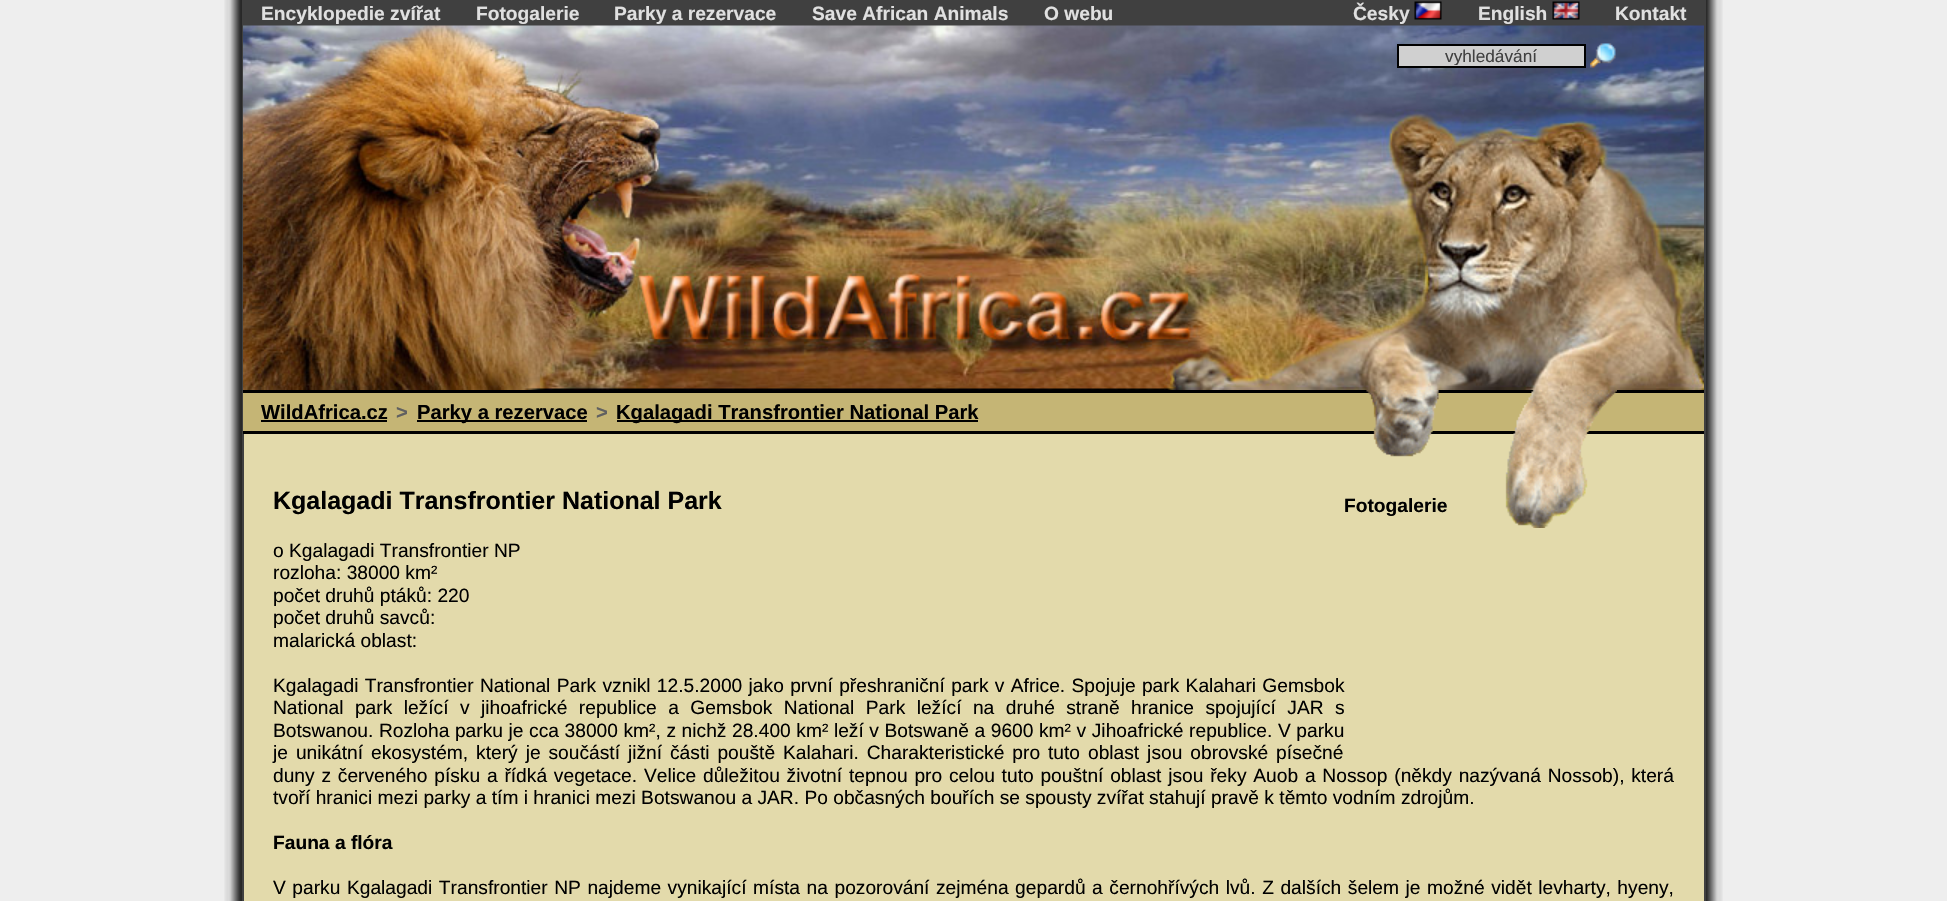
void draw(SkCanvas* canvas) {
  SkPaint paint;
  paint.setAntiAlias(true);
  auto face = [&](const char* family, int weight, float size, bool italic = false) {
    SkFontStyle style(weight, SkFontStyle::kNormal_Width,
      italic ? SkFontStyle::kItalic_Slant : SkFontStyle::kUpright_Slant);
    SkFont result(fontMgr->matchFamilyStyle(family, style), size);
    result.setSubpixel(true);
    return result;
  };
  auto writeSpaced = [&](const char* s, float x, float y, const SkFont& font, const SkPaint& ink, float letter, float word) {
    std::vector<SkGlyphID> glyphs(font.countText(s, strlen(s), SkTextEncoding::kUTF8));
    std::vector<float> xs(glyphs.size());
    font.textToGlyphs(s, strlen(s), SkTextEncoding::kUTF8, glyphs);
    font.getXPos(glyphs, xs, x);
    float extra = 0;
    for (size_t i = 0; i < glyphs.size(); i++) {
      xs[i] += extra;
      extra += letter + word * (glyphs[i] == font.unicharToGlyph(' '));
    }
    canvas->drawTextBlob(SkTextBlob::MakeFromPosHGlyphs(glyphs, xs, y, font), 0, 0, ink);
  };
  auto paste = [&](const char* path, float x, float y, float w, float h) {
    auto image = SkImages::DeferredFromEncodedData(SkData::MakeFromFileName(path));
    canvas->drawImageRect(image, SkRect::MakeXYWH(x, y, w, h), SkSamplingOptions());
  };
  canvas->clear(0xffeeeeee);
  paste("img/1.png", 224, 0, 1499, 901);
  {
    const struct { float x, y, w, h; SkColor color; } items[] = {
      {244, 434, 1460, 467, 0xffe3daab},
      {1704, 0, 2, 901, 0xff404040},
      {242, 0, 2, 901, 0xff404040},
      {244, 0, 1460, 26, 0xff404040},
    };
    for (auto [x, y, w, h, color] : items) {
      paint.setColor(color);
      canvas->drawRect(SkRect::MakeXYWH(x, y, w, h), paint);
    }
  }
  paste("img/2.png", 1414, 1, 28, 19);
  paste("img/3.png", 1552, 1, 28, 19);
  paste("img/4.png", 243, 25, 1461, 365);
  paint.setColor(0xffd0d0d0);
  canvas->drawRect(SkRect::MakeXYWH(1398, 45, 187, 22), paint);
  paint.setStroke(true);
  paint.setStrokeWidth(2);
  paint.setColor(0xff000000);
  canvas->drawRect(SkRect::MakeXYWH(1398, 45, 187, 22), paint);
  paste("img/5.png", 1590, 43, 26, 25);
  paint.setStroke(false);
  {
    const struct { float x, y, w, h; SkColor color; } items[] = {
      {243, 393, 1461, 38, 0xffc5b575},
      {243, 390, 1461, 3, 0xff000000},
      {243, 431, 1461, 3, 0xff000000},
      {261, 420, 126, 2, 0xff000000},
      {417, 420, 170, 2, 0xff000000},
      {617, 420, 361, 2, 0xff000000},
    };
    for (auto [x, y, w, h, color] : items) {
      paint.setColor(color);
      canvas->drawRect(SkRect::MakeXYWH(x, y, w, h), paint);
    }
  }
  auto f0 = face("Liberation Sans", 700, 19.2f);
  paint.setColor(0xffe0e0e0);
  {
    const struct { const char* s; float x, y; } items[] = {
      {"Encyklopedie zvířat", 261, 20},
      {"Fotogalerie", 476, 20},
      {"Parky a rezervace", 614, 20},
      {"Save African Animals", 812, 20},
      {"O webu", 1044, 20},
      {"Česky", 1353, 20},
      {"English", 1478, 20},
      {"Kontakt", 1615, 20},
    };
    for (auto [s, x, y] : items) {
      canvas->drawString(s, x, y, f0, paint);
    }
  }
  canvas->save();
  canvas->clipRect(SkRect::MakeXYWH(1401, 47, 180, 18));
  auto f1 = face("Liberation Sans", 400, 17.25f);
  paint.setColor(0xff404040);
  canvas->drawString("vyhledávání", 1445, 62, f1, paint);
  canvas->restore();
  auto f2 = face("Liberation Sans", 700, 20.2f);
  paint.setColor(0xff000000);
  canvas->drawString("WildAfrica.cz", 261, 419, f2, paint);
  paint.setColor(0xff606060);
  canvas->drawString(">", 396, 419, f2, paint);
  paint.setColor(0xff000000);
  canvas->drawString("Parky a rezervace", 417, 419, f2, paint);
  paint.setColor(0xff606060);
  canvas->drawString(">", 596, 419, f2, paint);
  paint.setColor(0xff000000);
  canvas->drawString("Kgalagadi Transfrontier National Park", 616, 419, f2, paint);
  auto f3 = face("Liberation Sans", 700, 25);
  canvas->drawString("Kgalagadi Transfrontier National Park", 273, 509, f3, paint);
  canvas->drawString("Fotogalerie", 1344, 512, f0, paint);
  paste("img/6.png", 1366, 390, 251, 138);
  auto f4 = face("Liberation Sans", 400, 19.2f);
  {
    const struct { const char* s; float x, y; } items[] = {
      {"o Kgalagadi Transfrontier NP", 273, 557},
      {"rozloha: 38000 km²", 273, 579},
      {"počet druhů ptáků: 220", 273, 602},
      {"počet druhů savců:", 273, 624},
      {"malarická oblast:", 273, 647},
    };
    for (auto [s, x, y] : items) {
      canvas->drawString(s, x, y, f4, paint);
    }
  }
  writeSpaced("Kgalagadi Transfrontier National Park vznikl 12.5.2000 jako první přeshraniční park v Africe. Spojuje park Kalahari Gemsbok", 273, 692, f4, paint, 0, 1);
  writeSpaced("National park ležící v jihoafrické republice a Gemsbok National Park ležící na druhé straně hranice spojující JAR s", 273, 714, f4, paint, 0, 6.1f);
  writeSpaced("Botswanou. Rozloha parku je cca 38000 km², z nichž 28.400 km² leží v Botswaně a 9600 km² v Jihoafrické republice. V parku", 273, 737, f4, paint, 0, 0.25f);
  writeSpaced("je unikátní ekosystém, který je součástí jižní části pouště Kalahari. Charakteristické pro tuto oblast jsou obrovské písečné", 273, 759, f4, paint, 0, 2.6f);
  writeSpaced("duny z červeného písku a řídká vegetace. Velice důležitou životní tepnou pro celou tuto pouštní oblast jsou řeky Auob a Nossop (někdy nazývaná Nossob), která", 273, 782, f4, paint, 0, 1.45f);
  canvas->drawString("tvoří hranici mezi parky a tím i hranici mezi Botswanou a JAR. Po občasných bouřích se spousty zvířat stahují pravě k těmto vodním zdrojům.", 273, 804, f4, paint);
  canvas->drawString("Fauna a flóra", 273, 849, f0, paint);
  writeSpaced("V parku Kgalagadi Transfrontier NP najdeme vynikající místa na pozorování zejména gepardů a černohřívých lvů. Z dalších šelem je možné vidět levharty, hyeny,", 273, 894, f4, paint, 0, 1.2f);
}
